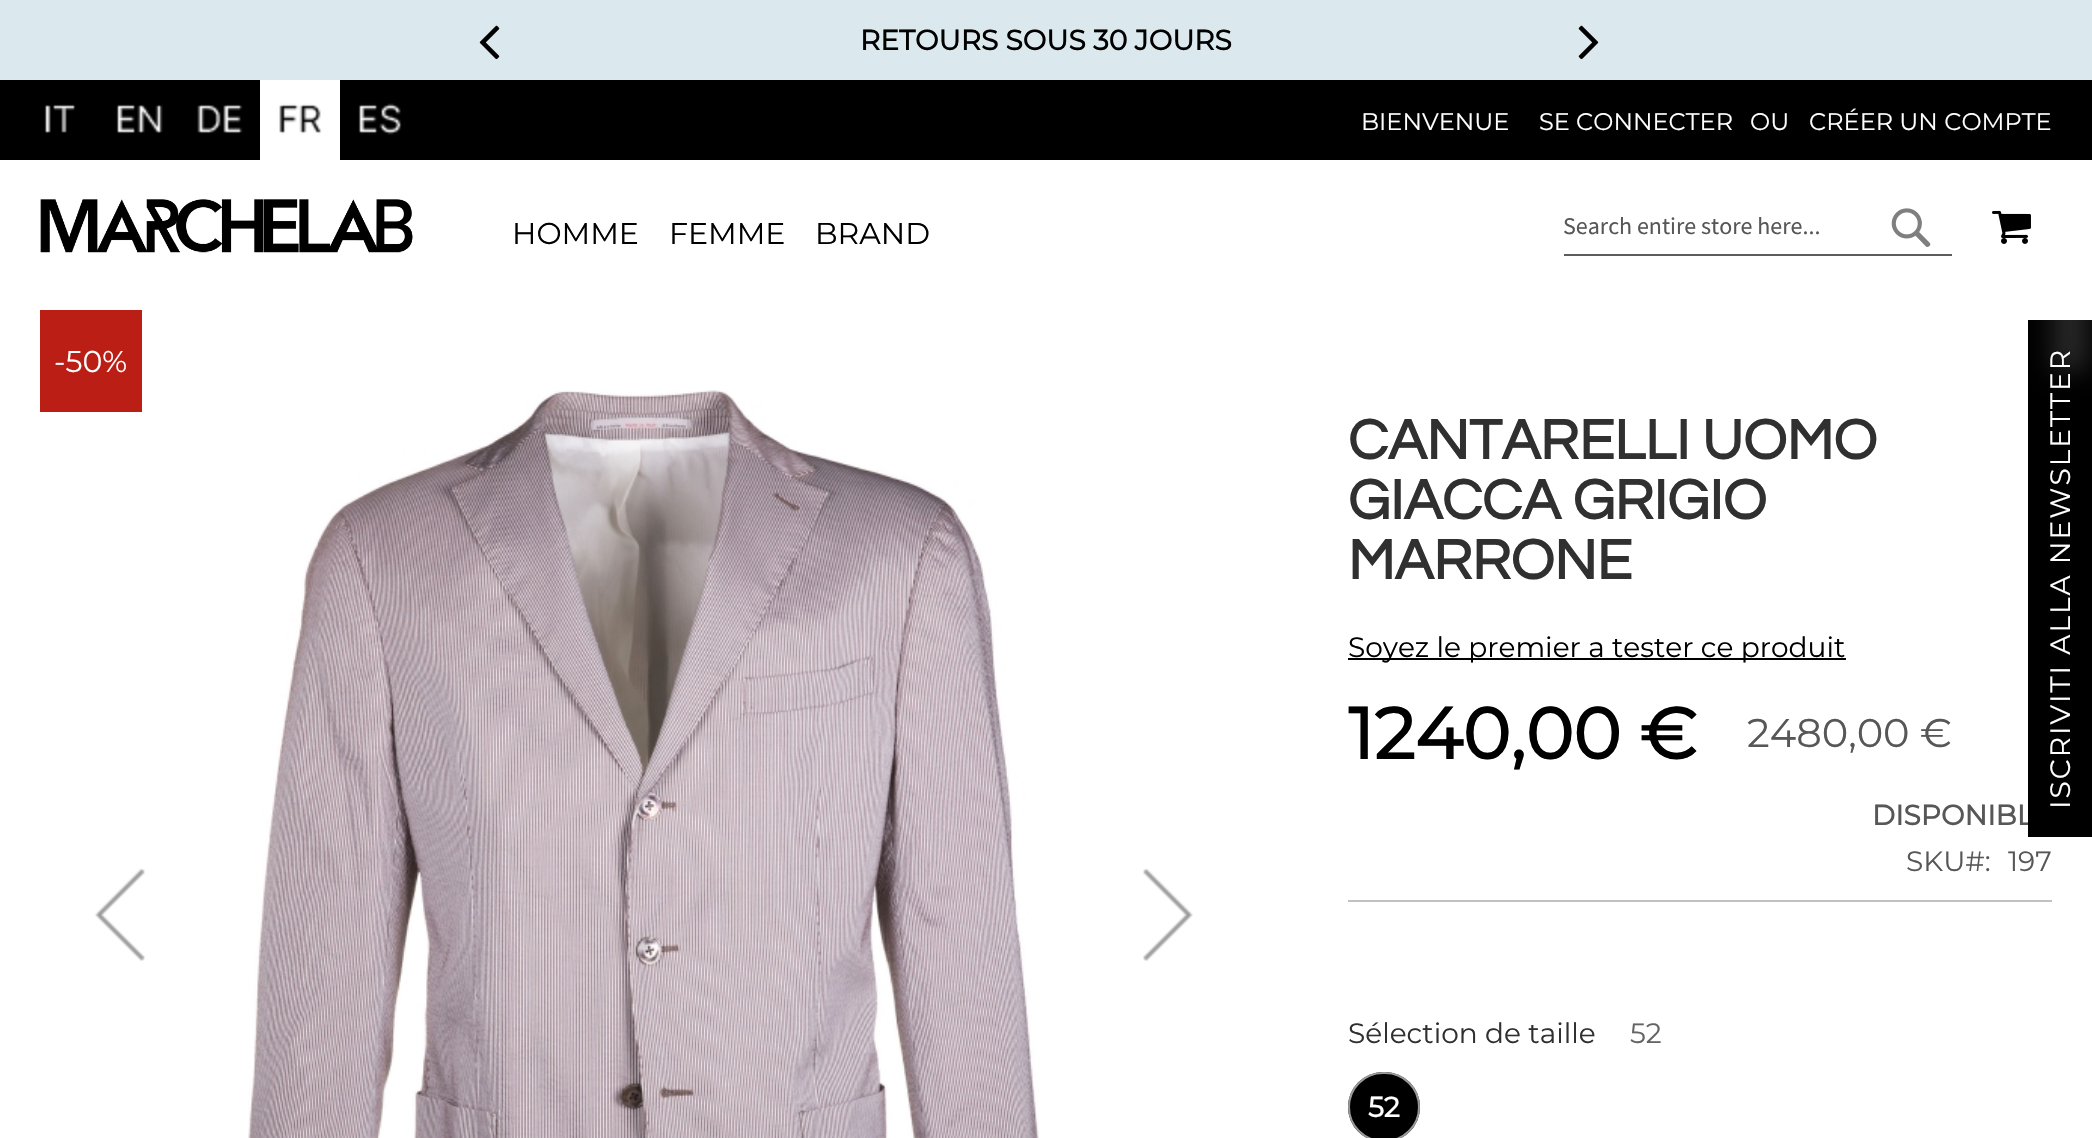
void draw(SkCanvas* canvas) {
  SkPaint paint;
  paint.setAntiAlias(true);
  auto face = [&](const char* family, int weight, float size, bool italic = false) {
    SkFontStyle style(weight, SkFontStyle::kNormal_Width,
      italic ? SkFontStyle::kItalic_Slant : SkFontStyle::kUpright_Slant);
    SkFont result(fontMgr->matchFamilyStyle(family, style), size);
    result.setSubpixel(true);
    return result;
  };
  auto writeSpaced = [&](const char* s, float x, float y, const SkFont& font, const SkPaint& ink, float letter, float word) {
    std::vector<SkGlyphID> glyphs(font.countText(s, strlen(s), SkTextEncoding::kUTF8));
    std::vector<float> xs(glyphs.size());
    font.textToGlyphs(s, strlen(s), SkTextEncoding::kUTF8, glyphs);
    font.getXPos(glyphs, xs, x);
    float extra = 0;
    for (size_t i = 0; i < glyphs.size(); i++) {
      xs[i] += extra;
      extra += letter + word * (glyphs[i] == font.unicharToGlyph(' '));
    }
    canvas->drawTextBlob(SkTextBlob::MakeFromPosHGlyphs(glyphs, xs, y, font), 0, 0, ink);
  };
  auto paste = [&](const char* path, float x, float y, float w, float h) {
    auto image = SkImages::DeferredFromEncodedData(SkData::MakeFromFileName(path));
    canvas->drawImageRect(image, SkRect::MakeXYWH(x, y, w, h), SkSamplingOptions());
  };
  canvas->clear(0xffffffff);
  paint.setColor(0xffdbe9ee);
  canvas->drawRect(SkRect::MakeXYWH(0, 0, 2092, 80), paint);
  paste("img/1.png", 479, 25, 21, 35);
  paste("img/2.png", 1578, 25, 21, 35);
  paint.setColor(0xff000000);
  canvas->drawRect(SkRect::MakeXYWH(0, 80, 2092, 80), paint);
  paste("img/3.png", 44, 104, 32, 30);
  paste("img/4.png", 116, 104, 47, 30);
  paste("img/5.png", 197, 104, 46, 30);
  paste("img/6.png", 260, 80, 80, 80);
  paste("img/7.png", 358, 103, 44, 32);
  paste("img/8.png", 40, 199, 373, 54);
  paint.setColor(0xff5c5c5c);
  canvas->drawRect(SkRect::MakeXYWH(1564, 254, 388, 2), paint);
  paste("img/9.png", 1891, 208, 40, 39);
  paint.setColor(0xffba1e15);
  canvas->drawRect(SkRect::MakeXYWH(40, 310, 102, 102), paint);
  paste("img/11.png", 95, 868, 50, 93);
  paste("img/12.png", 248, 390, 791, 748);
  paste("img/13.png", 1143, 868, 50, 93);
  paint.setColor(0xff000000);
  canvas->drawRect(SkRect::MakeXYWH(1348, 658, 498, 2), paint);
  paint.setColor(0xffc1c1c1);
  canvas->drawRect(SkRect::MakeXYWH(1348, 900, 704, 2), paint);
  paint.setColor(0xff000000);
  canvas->drawRoundRect(SkRect::MakeXYWH(1348, 1072, 72, 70), 35, 35, paint);
  paint.setStroke(true);
  paint.setStrokeWidth(2);
  paint.setColor(0xff999999);
  canvas->drawRoundRect(SkRect::MakeXYWH(1349, 1073, 70, 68), 34, 34, paint);
  auto f0 = face("Montserrat", 700, 28);
  paint.setStroke(false);
  paint.setColor(0xff000000);
  canvas->drawString("RETOURS SOUS 30 JOURS", 860, 50, f0, paint);
  auto f1 = face("Montserrat", 400, 24);
  paint.setColor(0xffffffff);
  {
    const struct { const char* s; float x, y; } items[] = {
      {"BIENVENUE", 1361, 130},
      {"SE CONNECTER", 1539, 130},
      {"OU", 1750, 130},
      {"CRÉER UN COMPTE", 1809, 130},
    };
    for (auto [s, x, y] : items) {
      canvas->drawString(s, x, y, f1, paint);
    }
  }
  auto f2 = face("Montserrat", 400, 30);
  paint.setColor(0xff000000);
  {
    const struct { const char* s; float x, y; } items[] = {
      {"HOMME", 512, 244},
      {"FEMME", 669, 244},
      {"BRAND", 815, 244},
    };
    for (auto [s, x, y] : items) {
      canvas->drawString(s, x, y, f2, paint);
    }
  }
  auto f3 = face("Source Sans Pro", 400, 24);
  paint.setColor(0xff575757);
  canvas->drawString("Search entire store here...", 1563, 234, f3, paint);
  paint.setColor(0xffffffff);
  canvas->drawString("-50%", 54, 372, f2, paint);
  auto f4 = face("Questrial", 700, 58);
  paint.setColor(0xff303030);
  {
    const struct { const char* s; float x, y; } items[] = {
      {"CANTARELLI UOMO", 1348, 459},
      {"GIACCA GRIGIO", 1348, 519},
      {"MARRONE", 1348, 579},
    };
    for (auto [s, x, y] : items) {
      canvas->drawString(s, x, y, f4, paint);
    }
  }
  auto f5 = face("Montserrat", 400, 28);
  paint.setColor(0xff000000);
  canvas->drawString("Soyez le premier a tester ce produit", 1348, 657, f5, paint);
  auto f6 = face("Montserrat", 700, 72);
  canvas->drawString("1 240,00 €", 1348, 759, f6, paint);
  auto f7 = face("Montserrat", 400, 40);
  paint.setColor(0xff575757);
  canvas->drawString("2 480,00 €", 1747, 747, f7, paint);
  canvas->drawString("DISPONIBL", 1872, 825, f0, paint);
  canvas->drawString("SKU#:", 1906, 871, f5, paint);
  canvas->drawString("197", 2008, 871, f5, paint);
  paint.setColor(0xff303030);
  canvas->drawString("Sélection de taille", 1348, 1043, f5, paint);
  paint.setColor(0xff646464);
  canvas->drawString("52", 1630, 1043, f5, paint);
  paint.setColor(0xffffffff);
  canvas->drawString("52", 1368, 1117, f0, paint);
  paint.setColor(0xff000000);
  canvas->drawRect(SkRect::MakeXYWH(2028, 320, 64, 517), paint);
  paint.setColor(0x26ffffff);
  paint.setMaskFilter(SkMaskFilter::MakeBlur(kNormal_SkBlurStyle, 12));
  canvas->drawRect(SkRect::MakeXYWH(2052, 270, 36, 100), paint);
  paint.setMaskFilter(nullptr);
  paste("img/10.png", 1992, 210, 39, 34);
  paint.setColor(0xffffffff);
  canvas->save();
  canvas->rotate(-90, 2070, 809);
  writeSpaced("ISCRIVITI ALLA NEWSLETTER", 2070, 809, f5, paint, 2, 0);
  canvas->restore();
}
